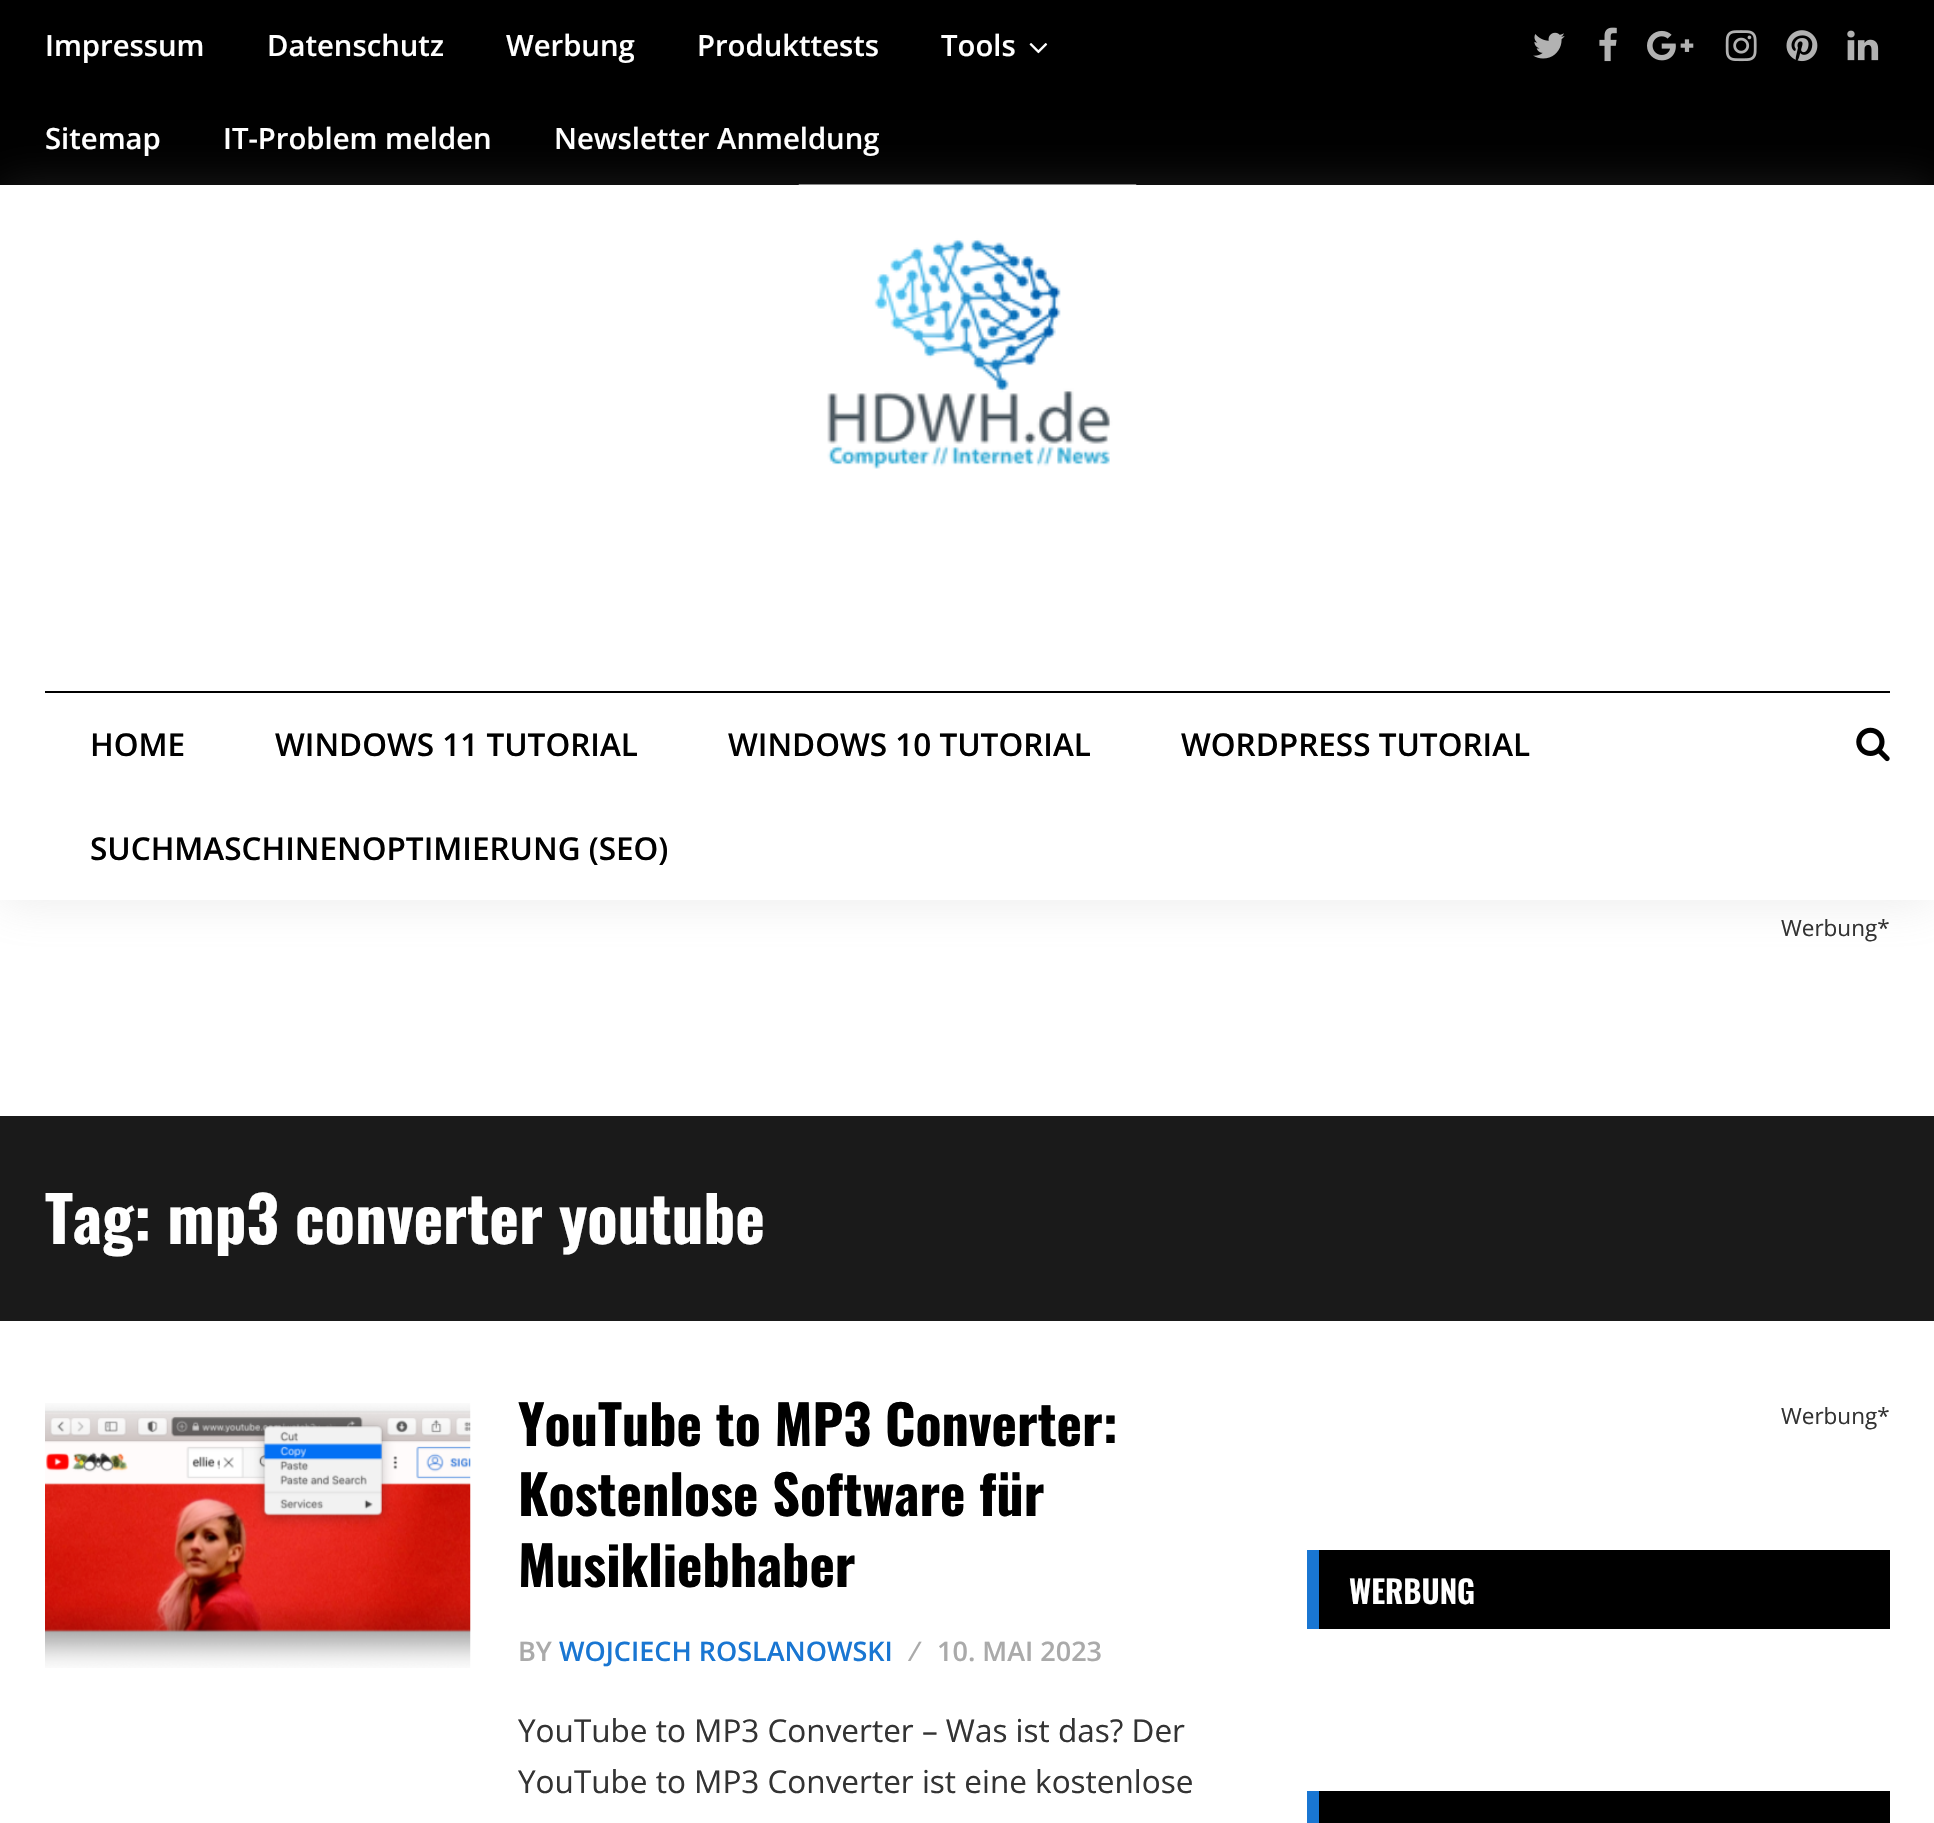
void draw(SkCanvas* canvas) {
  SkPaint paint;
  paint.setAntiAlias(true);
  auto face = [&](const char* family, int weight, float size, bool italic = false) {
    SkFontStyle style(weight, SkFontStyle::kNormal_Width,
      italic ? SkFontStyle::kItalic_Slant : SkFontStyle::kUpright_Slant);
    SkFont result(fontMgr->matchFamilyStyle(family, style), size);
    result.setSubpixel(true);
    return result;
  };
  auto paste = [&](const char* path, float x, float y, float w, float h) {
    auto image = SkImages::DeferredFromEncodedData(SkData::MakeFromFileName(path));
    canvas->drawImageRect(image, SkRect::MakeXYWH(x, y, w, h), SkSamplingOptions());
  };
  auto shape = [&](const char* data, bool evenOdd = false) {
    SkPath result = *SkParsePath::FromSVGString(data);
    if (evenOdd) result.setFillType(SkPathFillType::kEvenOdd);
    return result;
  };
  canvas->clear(0xffffffff);
  paint.setColor(0xff000000);
  canvas->drawRect(SkRect::MakeXYWH(0, 0, 1934, 185), paint);
  paste("img/1.png", 1029, 43, 19, 11);
  paste("img/2.png", 1533, 32, 32, 27);
  paste("img/3.png", 1599, 27, 18, 35);
  paste("img/4.png", 1647, 30, 47, 31);
  paste("img/5.png", 1725, 30, 32, 32);
  paste("img/6.png", 1786, 30, 32, 32);
  paste("img/7.png", 1847, 30, 32, 31);
  canvas->save();
  canvas->clipPath(shape("M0 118H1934V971H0ZM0 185H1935V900H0Z", true), true);
  paint.setColor(0x33999999);
  paint.setMaskFilter(SkMaskFilter::MakeBlur(kNormal_SkBlurStyle, 22.5f));
  canvas->drawRect(SkRect::MakeXYWH(0, 187, 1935, 715), paint);
  paint.setMaskFilter(nullptr);
  canvas->restore();
  paste("img/8.png", 798, 184, 339, 285);
  paint.setColor(0xff000000);
  canvas->drawRect(SkRect::MakeXYWH(45, 691, 1845, 2), paint);
  paste("img/9.png", 1856, 727, 34, 35);
  paint.setColor(0xff1a1a1a);
  canvas->drawRect(SkRect::MakeXYWH(0, 1116, 1934, 205), paint);
  paste("img/10.png", 45, 1403, 426, 265);
  {
    const struct { float x, y, w, h; SkColor color; } items[] = {
      {1319, 1550, 571, 79, 0xff000000},
      {1307, 1550, 12, 79, 0xff1976d2},
      {1319, 1791, 571, 32, 0xff000000},
      {1307, 1791, 12, 32, 0xff1976d2},
    };
    for (auto [x, y, w, h, color] : items) {
      paint.setColor(color);
      canvas->drawRect(SkRect::MakeXYWH(x, y, w, h), paint);
    }
  }
  auto f0 = face("Open Sans", 600, 29.25f);
  paint.setColor(0xffffffff);
  {
    const struct { const char* s; float x, y; } items[] = {
      {"Impressum", 45, 56},
      {"Datenschutz", 267, 56},
      {"Werbung", 506, 56},
      {"Produkttests", 697, 56},
      {"Tools", 941, 56},
      {"Sitemap", 45, 149},
      {"IT-Problem melden", 223, 149},
      {"Newsletter Anmeldung", 554, 149},
    };
    for (auto [s, x, y] : items) {
      canvas->drawString(s, x, y, f0, paint);
    }
  }
  auto f1 = face("Open Sans", 600, 31.5f);
  paint.setColor(0xff000000);
  {
    const struct { const char* s; float x, y; } items[] = {
      {"HOME", 90, 756},
      {"WINDOWS 11 TUTORIAL", 275, 756},
      {"WINDOWS 10 TUTORIAL", 728, 756},
      {"WORDPRESS TUTORIAL", 1181, 756},
      {"SUCHMASCHINENOPTIMIERUNG (SEO)", 90, 860},
    };
    for (auto [s, x, y] : items) {
      canvas->drawString(s, x, y, f1, paint);
    }
  }
  auto f2 = face("Open Sans", 400, 22.5f);
  paint.setColor(0xff333333);
  canvas->drawString("Werbung*", 1781, 936, f2, paint);
  auto f3 = face("Oswald", 700, 63);
  paint.setColor(0xffffffff);
  canvas->drawString("Tag: mp3 converter youtube", 45, 1244, f3, paint);
  auto f4 = face("Oswald", 700, 54);
  paint.setColor(0xff000000);
  {
    const struct { const char* s; float x, y; } items[] = {
      {"YouTube to MP3 Converter:", 518, 1446},
      {"Kostenlose Software für", 518, 1516},
      {"Musikliebhaber", 518, 1587},
    };
    for (auto [s, x, y] : items) {
      canvas->drawString(s, x, y, f4, paint);
    }
  }
  auto f5 = face("Open Sans", 600, 27);
  paint.setColor(0xffaaaaaa);
  canvas->drawString("BY", 518, 1661, f5, paint);
  paint.setColor(0xff1976d2);
  canvas->drawString("WOJCIECH ROSLANOWSKI", 559, 1661, f5, paint);
  paint.setColor(0xffaaaaaa);
  canvas->drawString("⁄", 913, 1661, f5, paint);
  canvas->drawString("10. MAI 2023", 937, 1661, f5, paint);
  auto f6 = face("Open Sans", 400, 31.5f);
  paint.setColor(0xff333333);
  canvas->drawString("YouTube to MP3 Converter – Was ist das? Der", 518, 1742, f6, paint);
  canvas->drawString("YouTube to MP3 Converter ist eine kostenlose", 518, 1793, f6, paint);
  canvas->drawString("Werbung*", 1781, 1424, f2, paint);
  auto f7 = face("Oswald", 600, 31.5f);
  paint.setColor(0xffffffff);
  canvas->drawString("WERBUNG", 1349, 1604, f7, paint);
}
